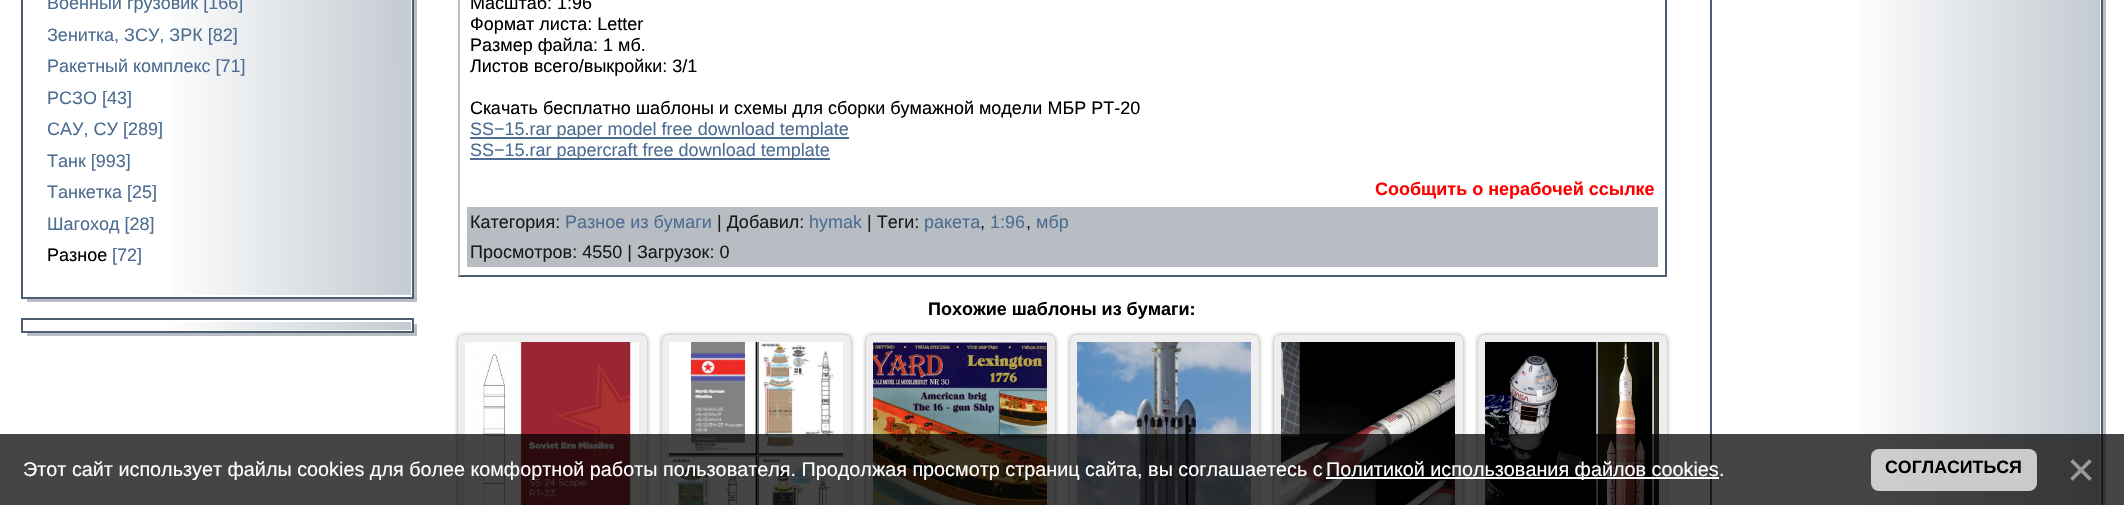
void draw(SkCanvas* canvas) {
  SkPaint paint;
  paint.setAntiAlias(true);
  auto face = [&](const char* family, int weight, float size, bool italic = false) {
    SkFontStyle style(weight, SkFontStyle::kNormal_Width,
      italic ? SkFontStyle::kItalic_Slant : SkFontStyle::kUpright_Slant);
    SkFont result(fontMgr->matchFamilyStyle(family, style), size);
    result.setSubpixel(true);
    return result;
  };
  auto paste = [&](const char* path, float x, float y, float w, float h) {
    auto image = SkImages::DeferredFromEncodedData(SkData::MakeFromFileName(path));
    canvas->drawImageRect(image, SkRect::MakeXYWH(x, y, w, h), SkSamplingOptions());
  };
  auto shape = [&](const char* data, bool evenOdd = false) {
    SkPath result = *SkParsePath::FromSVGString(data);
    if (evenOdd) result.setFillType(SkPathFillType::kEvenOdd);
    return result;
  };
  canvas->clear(0xffffffff);
  paint.setColor(0xffb7bec6);
  canvas->drawPath(shape("M27 297V302H417V-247H412V297Z"), paint);
  {
    const SkColor colors[] = {0xffffffff, 0xffc3cad1};
    const float stops[] = {0.35f, 1};
    const SkPoint ends[] = {{24, 23}, {411, 22}};
    paint.setShader(SkGradientShader::MakeLinear(ends, colors, stops, 2, SkTileMode::kClamp));
    paint.setAlpha(255);
  }
  canvas->drawRect(SkRect::MakeXYWH(170, 0, 241, 295), paint);
  paint.setStroke(true);
  paint.setStrokeWidth(2);
  paint.setShader(nullptr);
  paint.setColor(0xffffffff);
  canvas->drawRect(SkRect::MakeXYWH(24, -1, 388, 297), paint);
  paint.setColor(0xff4f5d71);
  canvas->drawRect(SkRect::MakeXYWH(22, -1, 391, 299), paint);
  paint.setStroke(false);
  paint.setColor(0xffb7bec6);
  canvas->drawPath(shape("M27 332V336H417V324H412V332Z"), paint);
  {
    const SkColor colors[] = {0xffffffff, 0xffc3cad1};
    const float stops[] = {0.35f, 1};
    const SkPoint ends[] = {{24, 326}, {411, 326}};
    paint.setShader(SkGradientShader::MakeLinear(ends, colors, stops, 2, SkTileMode::kClamp));
    paint.setAlpha(255);
  }
  canvas->drawRect(SkRect::MakeXYWH(170, 322, 241, 8), paint);
  paint.setStroke(true);
  paint.setShader(nullptr);
  paint.setColor(0xffffffff);
  canvas->drawRect(SkRect::MakeXYWH(24, 321, 388, 10), paint);
  paint.setColor(0xff4f5d71);
  canvas->drawRect(SkRect::MakeXYWH(22, 319, 391, 13), paint);
  paint.setStroke(false);
  {
    const struct { float x, y, w, h; SkColor color; } items[] = {
      {1665, 0, 2, 276, 0xff4f5d71},
      {458, 275, 1209, 2, 0xff4f5d71},
      {458, 0, 2, 276, 0xffb9bfc7},
      {470, 137, 379, 2, 0xff4d6d91},
      {470, 158, 360, 2, 0xff4d6d91},
      {467, 207, 1191, 60, 0xffb8bdc4},
    };
    for (auto [x, y, w, h, color] : items) {
      paint.setColor(color);
      canvas->drawRect(SkRect::MakeXYWH(x, y, w, h), paint);
    }
  }
  paint.setColor(0xff999999);
  paint.setMaskFilter(SkMaskFilter::MakeBlur(kNormal_SkBlurStyle, 2));
  canvas->drawRoundRect(SkRect::MakeXYWH(458, 335, 189, 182), 6, 6, paint);
  paint.setMaskFilter(nullptr);
  paint.setColor(0xffeeeeee);
  canvas->drawRoundRect(SkRect::MakeXYWH(458, 335, 189, 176), 6, 6, paint);
  paste("img/1.png", 465, 342, 174, 163);
  paint.setColor(0xff999999);
  paint.setMaskFilter(SkMaskFilter::MakeBlur(kNormal_SkBlurStyle, 2));
  canvas->drawRoundRect(SkRect::MakeXYWH(662, 335, 189, 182), 6, 6, paint);
  paint.setMaskFilter(nullptr);
  paint.setColor(0xffeeeeee);
  canvas->drawRoundRect(SkRect::MakeXYWH(662, 335, 189, 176), 6, 6, paint);
  paste("img/2.png", 669, 342, 174, 163);
  paint.setColor(0xff999999);
  paint.setMaskFilter(SkMaskFilter::MakeBlur(kNormal_SkBlurStyle, 2));
  canvas->drawRoundRect(SkRect::MakeXYWH(866, 335, 189, 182), 6, 6, paint);
  paint.setMaskFilter(nullptr);
  paint.setColor(0xffeeeeee);
  canvas->drawRoundRect(SkRect::MakeXYWH(866, 335, 189, 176), 6, 6, paint);
  paste("img/3.png", 873, 342, 174, 163);
  paint.setColor(0xff999999);
  paint.setMaskFilter(SkMaskFilter::MakeBlur(kNormal_SkBlurStyle, 2));
  canvas->drawRoundRect(SkRect::MakeXYWH(1070, 335, 189, 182), 6, 6, paint);
  paint.setMaskFilter(nullptr);
  paint.setColor(0xffeeeeee);
  canvas->drawRoundRect(SkRect::MakeXYWH(1070, 335, 189, 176), 6, 6, paint);
  paste("img/4.png", 1077, 342, 174, 163);
  paint.setColor(0xff999999);
  paint.setMaskFilter(SkMaskFilter::MakeBlur(kNormal_SkBlurStyle, 2));
  canvas->drawRoundRect(SkRect::MakeXYWH(1274, 335, 189, 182), 6, 6, paint);
  paint.setMaskFilter(nullptr);
  paint.setColor(0xffeeeeee);
  canvas->drawRoundRect(SkRect::MakeXYWH(1274, 335, 189, 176), 6, 6, paint);
  paste("img/5.png", 1281, 342, 174, 163);
  paint.setColor(0xff999999);
  paint.setMaskFilter(SkMaskFilter::MakeBlur(kNormal_SkBlurStyle, 2));
  canvas->drawRoundRect(SkRect::MakeXYWH(1478, 335, 189, 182), 6, 6, paint);
  paint.setMaskFilter(nullptr);
  paint.setColor(0xffeeeeee);
  canvas->drawRoundRect(SkRect::MakeXYWH(1478, 335, 189, 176), 6, 6, paint);
  paste("img/6.png", 1485, 342, 174, 163);
  paint.setColor(0xffb7bec6);
  canvas->drawPath(shape("M1716 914V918H2106V-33H2102V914Z"), paint);
  {
    const SkColor colors[] = {0xffffffff, 0xffc3cad1};
    const float stops[] = {0.35f, 1};
    const SkPoint ends[] = {{1713, 438}, {2100, 438}};
    paint.setShader(SkGradientShader::MakeLinear(ends, colors, stops, 2, SkTileMode::kClamp));
    paint.setAlpha(255);
  }
  canvas->drawRect(SkRect::MakeXYWH(1859, 0, 241, 505), paint);
  paint.setStroke(true);
  paint.setShader(nullptr);
  paint.setColor(0xff4f5d71);
  canvas->drawRect(SkRect::MakeXYWH(1711, -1, 391, 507), paint);
  paint.setStroke(false);
  paint.setColor(0xba000000);
  canvas->drawRect(SkRect::MakeXYWH(0, 434, 2124, 71), paint);
  paint.setColor(0xffffffff);
  canvas->drawRect(SkRect::MakeXYWH(1326, 477, 393, 2), paint);
  paint.setColor(0xbaffffff);
  canvas->drawRoundRect(SkRect::MakeXYWH(1871, 449, 166, 42), 8, 8, paint);
  auto f0 = face("Liberation Sans", 400, 18);
  paint.setColor(0xff4d6d91);
  {
    const struct { const char* s; float x, y; } items[] = {
      {"Военный грузовик [166]", 47, 9},
      {"Зенитка, ЗСУ, ЗРК [82]", 47, 41},
      {"Ракетный комплекс [71]", 47, 72},
      {"РСЗО [43]", 47, 104},
      {"САУ, СУ [289]", 47, 135},
      {"Танк [993]", 47, 167},
      {"Танкетка [25]", 47, 198},
      {"Шагоход [28]", 47, 230},
    };
    for (auto [s, x, y] : items) {
      canvas->drawString(s, x, y, f0, paint);
    }
  }
  paint.setColor(0xff000000);
  canvas->drawString("Разное", 47, 261, f0, paint);
  paint.setColor(0xff4d6d91);
  canvas->drawString("[72]", 112, 261, f0, paint);
  paint.setColor(0xff000000);
  {
    const struct { const char* s; float x, y; } items[] = {
      {"Масштаб: 1:96", 470, 9},
      {"Формат листа: Letter", 470, 30},
      {"Размер файла: 1 мб.", 470, 51},
      {"Листов всего/выкройки: 3/1", 470, 72},
      {"Скачать бесплатно шаблоны и схемы для сборки бумажной модели МБР РТ-20", 470, 114},
    };
    for (auto [s, x, y] : items) {
      canvas->drawString(s, x, y, f0, paint);
    }
  }
  paint.setColor(0xff4d6d91);
  canvas->drawString("SS−15.rar paper model free download template", 470, 135, f0, paint);
  canvas->drawString("SS−15.rar papercraft free download template", 470, 156, f0, paint);
  auto f1 = face("Liberation Sans", 700, 18);
  paint.setColor(0xffff0000);
  canvas->drawString("Сообщить о нерабочей ссылке", 1375, 195, f1, paint);
  paint.setColor(0xff1a1a1a);
  canvas->drawString("Категория:", 470, 228, f0, paint);
  paint.setColor(0xff4d6d91);
  canvas->drawString("Разное из бумаги", 565, 228, f0, paint);
  paint.setColor(0xff1a1a1a);
  canvas->drawString("| Добавил:", 717, 228, f0, paint);
  paint.setColor(0xff4d6d91);
  canvas->drawString("hymak", 809, 228, f0, paint);
  paint.setColor(0xff1a1a1a);
  canvas->drawString("| Теги:", 867, 228, f0, paint);
  paint.setColor(0xff4d6d91);
  canvas->drawString("ракета", 924, 228, f0, paint);
  paint.setColor(0xff1a1a1a);
  canvas->drawString(",", 980, 228, f0, paint);
  paint.setColor(0xff4d6d91);
  canvas->drawString("1:96", 990, 228, f0, paint);
  paint.setColor(0xff1a1a1a);
  canvas->drawString(",", 1026, 228, f0, paint);
  paint.setColor(0xff4d6d91);
  canvas->drawString("мбр", 1036, 228, f0, paint);
  paint.setColor(0xff1a1a1a);
  canvas->drawString("Просмотров: 4550 | Загрузок: 0", 470, 258, f0, paint);
  paint.setColor(0xff000000);
  canvas->drawString("Похожие шаблоны из бумаги:", 928, 315, f1, paint);
  auto f2 = face("Liberation Sans", 400, 19.8f);
  paint.setColor(0xffffffff);
  {
    const struct { const char* s; float x, y; } items[] = {
      {"Этот сайт использует файлы cookies для более комфортной работы пользователя. Продолжая просмотр страниц сайта, вы соглашаетесь с", 23, 476},
      {"Политикой использования файлов cookies", 1326, 476},
      {".", 1719, 476},
    };
    for (auto [s, x, y] : items) {
      canvas->drawString(s, x, y, f2, paint);
    }
  }
  auto f3 = face("Liberation Sans", 700, 17.75f);
  paint.setColor(0xff000000);
  canvas->drawString("СОГЛАСИТЬСЯ", 1885, 473, f3, paint);
  auto f4 = face("Liberation Sans", 400, 48);
  paint.setColor(0xff999999);
  canvas->drawString("×", 2067, 486, f4, paint);
}
